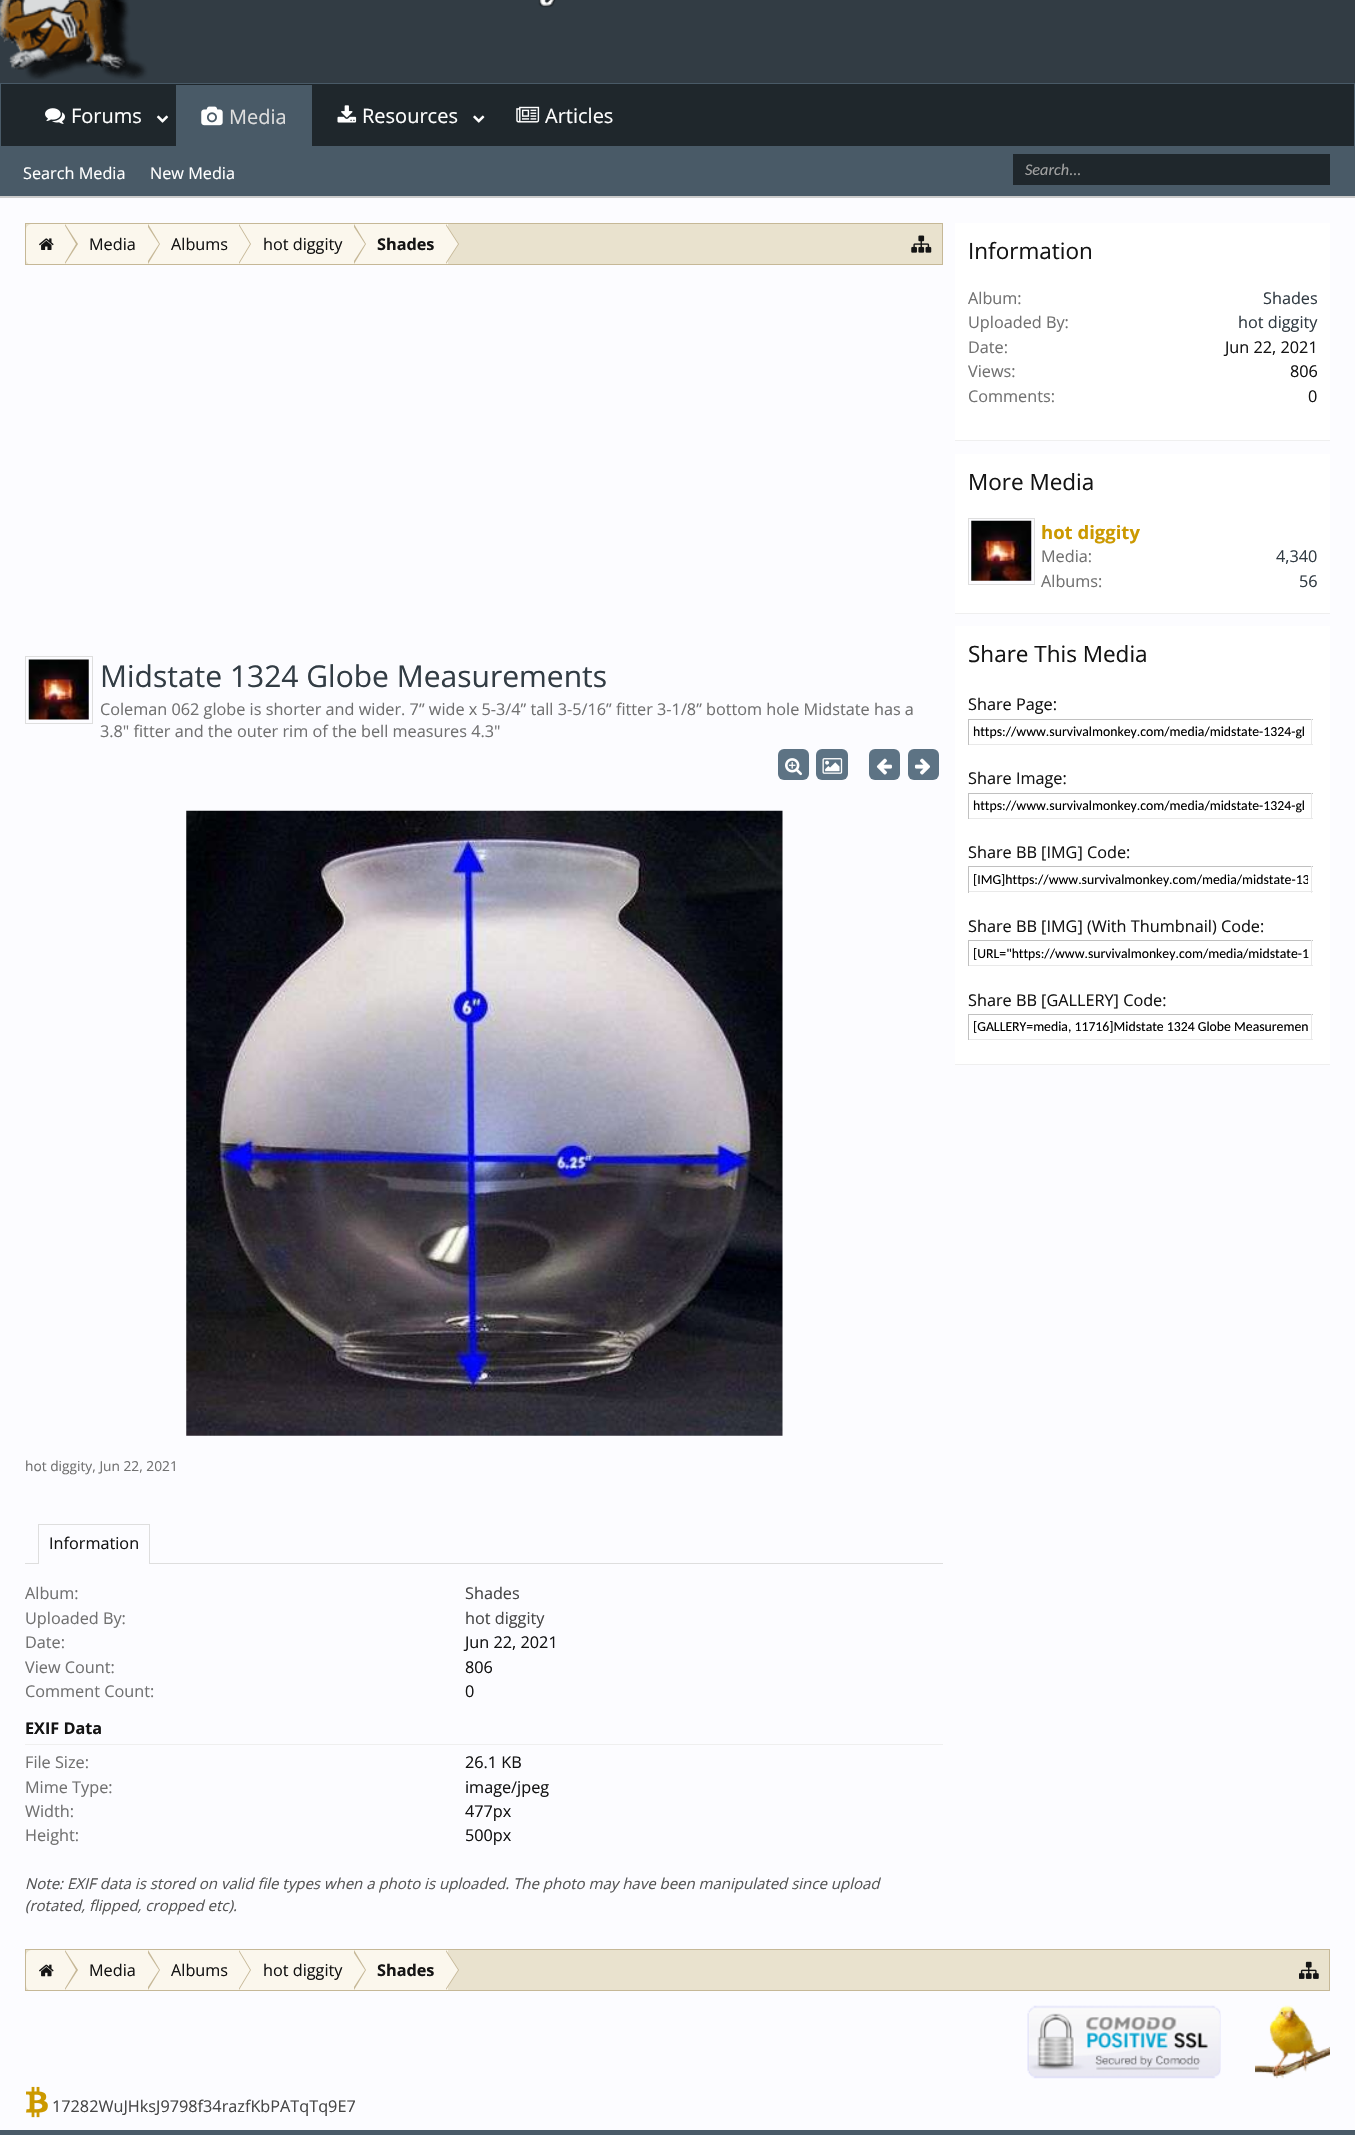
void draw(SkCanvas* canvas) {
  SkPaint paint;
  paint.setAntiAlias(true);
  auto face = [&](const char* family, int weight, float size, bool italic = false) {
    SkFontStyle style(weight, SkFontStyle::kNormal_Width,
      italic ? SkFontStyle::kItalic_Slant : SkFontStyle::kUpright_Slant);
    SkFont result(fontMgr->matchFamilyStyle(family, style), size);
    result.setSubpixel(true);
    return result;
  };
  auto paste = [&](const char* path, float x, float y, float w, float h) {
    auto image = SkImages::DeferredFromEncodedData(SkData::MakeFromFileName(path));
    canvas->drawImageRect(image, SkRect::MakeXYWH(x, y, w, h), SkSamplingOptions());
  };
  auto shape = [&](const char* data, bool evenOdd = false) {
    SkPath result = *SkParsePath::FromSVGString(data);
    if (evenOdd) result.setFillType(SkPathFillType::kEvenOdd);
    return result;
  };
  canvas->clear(0xffcbcbcb);
  paint.setColor(0xff323c44);
  canvas->drawRect(SkRect::MakeXYWH(0, 0, 1355, 83), paint);
  paste("img/1.png", 0, 0, 556, 80);
  paint.setColor(0xff1f272c);
  canvas->drawRect(SkRect::MakeXYWH(1, 84, 1353, 62), paint);
  paint.setStroke(true);
  paint.setStrokeWidth(1);
  paint.setColor(0xff495a67);
  canvas->drawRect(SkRect::MakeXYWH(0.5f, 83.5f, 1354, 64), paint);
  paint.setStroke(false);
  canvas->drawRect(SkRect::MakeXYWH(176, 85, 136, 61), paint);
  paint.setStroke(true);
  paint.setColor(0xff1f272c);
  canvas->drawRect(SkRect::MakeXYWH(175.5f, 84.5f, 137, 64), paint);
  paste("img/2.png", 201, 106, 22, 20);
  paint.setStroke(false);
  paint.setColor(0xff495a67);
  canvas->drawRect(SkRect::MakeXYWH(0, 146, 1355, 50), paint);
  paste("img/3.png", 516, 106, 24, 17);
  paste("img/4.png", 45, 108, 20, 16);
  paste("img/5.png", 156, 115, 13, 8);
  paste("img/6.png", 337, 105, 20, 18);
  paste("img/7.png", 473, 115, 12, 8);
  paint.setColor(0xff1f272c);
  canvas->drawRect(SkRect::MakeXYWH(1013, 154, 317, 31), paint);
  paint.setColor(0xfffcfcff);
  canvas->drawRect(SkRect::MakeXYWH(0, 198, 1355, 1932), paint);
  paint.setColor(0xffe9e2ce);
  canvas->drawRect(SkRect::MakeXYWH(25.5f, 223.5f, 917, 41), paint);
  paint.setStroke(true);
  paint.setColor(0xffc6b897);
  canvas->drawRect(SkRect::MakeXYWH(25.5f, 223.5f, 917, 41), paint);
  canvas->save();
  canvas->clipRect(SkRect::MakeXYWH(26, 224, 915, 40));
  paint.setStroke(false);
  paint.setColor(0xfffbf7ed);
  canvas->drawPath(shape("M32 224H66V265H32C28.5 265 26 262.5 26 259V230C26 226.5 28.5 224 32 224Z"), paint);
  canvas->restore();
  paste("img/8.png", 39, 238, 15, 12);
  canvas->drawRect(SkRect::MakeXYWH(66, 224, 382, 40), paint);
  paint.setColor(0xffc6b897);
  canvas->drawPath(shape("M65 264V224L78 244Z"), paint);
  paint.setColor(0xfffbf7ed);
  canvas->drawPath(shape("M64 264V224L76 244Z"), paint);
  paint.setColor(0xffc6b897);
  canvas->drawPath(shape("M148 264V224L160 244Z"), paint);
  paint.setColor(0xfffbf7ed);
  canvas->drawPath(shape("M146 264V224L159 244Z"), paint);
  paint.setColor(0xffc6b897);
  canvas->drawPath(shape("M239 264V224L251 244Z"), paint);
  paint.setColor(0xfffbf7ed);
  canvas->drawPath(shape("M238 264V224L250 244Z"), paint);
  paint.setColor(0xffc6b897);
  canvas->drawPath(shape("M354 264V224L366 244Z"), paint);
  paint.setColor(0xfffbf7ed);
  canvas->drawPath(shape("M352 264V224L365 244Z"), paint);
  paint.setColor(0xffc6b897);
  canvas->drawPath(shape("M446 264V224L459 244Z"), paint);
  paint.setColor(0xfffbf7ed);
  canvas->drawPath(shape("M445 264V224L458 244Z"), paint);
  paste("img/9.png", 911, 235, 21, 18);
  paint.setStroke(true);
  paint.setColor(0xffdedede);
  canvas->drawRect(SkRect::MakeXYWH(25.5f, 656.5f, 67, 67), paint);
  paste("img/10.png", 28, 659, 61, 61);
  paint.setStroke(false);
  paint.setColor(0xff5d7384);
  canvas->drawRoundRect(SkRect::MakeXYWH(778, 749, 31, 31), 6, 6, paint);
  paste("img/11.png", 785, 758, 17, 18);
  canvas->drawRoundRect(SkRect::MakeXYWH(816, 749, 32, 31), 6, 6, paint);
  paste("img/12.png", 822, 758, 21, 16);
  canvas->drawRoundRect(SkRect::MakeXYWH(869, 749, 31, 31), 6, 6, paint);
  paste("img/13.png", 876, 758, 16, 17);
  canvas->drawRoundRect(SkRect::MakeXYWH(908, 749, 31, 31), 6, 6, paint);
  paste("img/14.png", 915, 758, 15, 17);
  paste("img/15.png", 186, 810, 597, 626);
  {
    const struct { float x, y, w, h; SkColor color; } items[] = {
      {25, 1563, 918, 1, 0xffdedede},
      {39, 1563, 110, 1, 0xfffcfcff},
      {38, 1524, 112, 1, 0xffdedede},
      {149, 1524, 1, 40, 0xffdedede},
      {38, 1524, 1, 40, 0xffdedede},
      {25, 1744, 918, 1, 0xffefefef},
      {955, 223, 375, 217, 0xffffffff},
      {955, 440, 375, 1, 0xffefefef},
      {955, 454, 375, 159, 0xffffffff},
      {955, 613, 375, 1, 0xffefefef},
    };
    for (auto [x, y, w, h, color] : items) {
      paint.setColor(color);
      canvas->drawRect(SkRect::MakeXYWH(x, y, w, h), paint);
    }
  }
  paint.setColor(0xfffcfcff);
  canvas->drawRect(SkRect::MakeXYWH(968.5f, 518.5f, 66, 66), paint);
  paint.setStroke(true);
  paint.setColor(0xffdedede);
  canvas->drawRect(SkRect::MakeXYWH(968.5f, 518.5f, 66, 66), paint);
  paste("img/16.png", 971, 520, 61, 61);
  paint.setStroke(false);
  {
    const struct { float x, y, w, h; SkColor color; } items[] = {
      {955, 626, 375, 438, 0xffffffff},
      {955, 1064, 375, 1, 0xffefefef},
      {968, 719, 345, 1, 0xffc0c0c0},
      {1311, 719, 1, 26, 0xffe9e9e9},
      {968, 744, 345, 1, 0xffe9e9e9},
      {968, 719, 1, 26, 0xffc0c0c0},
      {968, 793, 345, 1, 0xffc0c0c0},
      {1311, 793, 1, 26, 0xffe9e9e9},
      {968, 818, 345, 1, 0xffe9e9e9},
      {968, 793, 1, 26, 0xffc0c0c0},
      {968, 866, 345, 1, 0xffc0c0c0},
      {1311, 866, 1, 27, 0xffe9e9e9},
      {968, 891, 345, 1, 0xffe9e9e9},
      {968, 866, 1, 27, 0xffc0c0c0},
      {968, 940, 345, 1, 0xffc0c0c0},
      {1311, 940, 1, 26, 0xffe9e9e9},
      {968, 965, 345, 1, 0xffe9e9e9},
      {968, 940, 1, 26, 0xffc0c0c0},
      {968, 1014, 345, 1, 0xffc0c0c0},
      {1311, 1014, 1, 26, 0xffe9e9e9},
      {968, 1039, 345, 1, 0xffe9e9e9},
      {968, 1014, 1, 26, 0xffc0c0c0},
    };
    for (auto [x, y, w, h, color] : items) {
      paint.setColor(color);
      canvas->drawRect(SkRect::MakeXYWH(x, y, w, h), paint);
    }
  }
  paint.setColor(0xffe9e2ce);
  canvas->drawRect(SkRect::MakeXYWH(25.5f, 1949.5f, 1304, 41), paint);
  paint.setStroke(true);
  paint.setColor(0xffc6b897);
  canvas->drawRect(SkRect::MakeXYWH(25.5f, 1949.5f, 1304, 41), paint);
  canvas->save();
  canvas->clipRect(SkRect::MakeXYWH(26, 1950, 1303, 40));
  paint.setStroke(false);
  paint.setColor(0xfffbf7ed);
  canvas->drawPath(shape("M32 1950H66V1991H32C28.5 1991 26 1988.5 26 1985V1956C26 1952.5 28.5 1950 32 1950Z"), paint);
  canvas->restore();
  paste("img/17.png", 39, 1964, 15, 13);
  canvas->drawRect(SkRect::MakeXYWH(66, 1950, 382, 40), paint);
  paint.setColor(0xffc6b897);
  canvas->drawPath(shape("M65 1990V1950L78 1970Z"), paint);
  paint.setColor(0xfffbf7ed);
  canvas->drawPath(shape("M64 1990V1950L76 1970Z"), paint);
  paint.setColor(0xffc6b897);
  canvas->drawPath(shape("M148 1990V1950L160 1970Z"), paint);
  paint.setColor(0xfffbf7ed);
  canvas->drawPath(shape("M146 1990V1950L159 1970Z"), paint);
  paint.setColor(0xffc6b897);
  canvas->drawPath(shape("M239 1990V1950L251 1970Z"), paint);
  paint.setColor(0xfffbf7ed);
  canvas->drawPath(shape("M238 1990V1950L250 1970Z"), paint);
  paint.setColor(0xffc6b897);
  canvas->drawPath(shape("M354 1990V1950L366 1970Z"), paint);
  paint.setColor(0xfffbf7ed);
  canvas->drawPath(shape("M352 1990V1950L365 1970Z"), paint);
  paint.setColor(0xffc6b897);
  canvas->drawPath(shape("M446 1990V1950L459 1970Z"), paint);
  paint.setColor(0xfffbf7ed);
  canvas->drawPath(shape("M445 1990V1950L458 1970Z"), paint);
  paste("img/18.png", 1299, 1961, 20, 18);
  paste("img/19.png", 1027, 2005, 194, 74);
  paste("img/20.png", 1255, 2005, 75, 74);
  paste("img/21.png", 26, 2086, 22, 32);
  paint.setColor(0xff495a67);
  canvas->drawRect(SkRect::MakeXYWH(0, 2130, 1355, 5), paint);
  auto f0 = face("Open Sans", 400, 20);
  paint.setColor(0xffdedede);
  canvas->drawString("Media", 229, 124, f0, paint);
  auto f1 = face("Open Sans", 400, 16.25f);
  paint.setColor(0xffffffff);
  canvas->drawString("Search Media", 23, 179, f1, paint);
  canvas->drawString("New Media", 150, 179, f1, paint);
  {
    const struct { const char* s; float x, y; } items[] = {
      {"Articles", 545, 123},
      {"Forums", 71, 123},
      {"Resources", 362, 123},
    };
    for (auto [s, x, y] : items) {
      canvas->drawString(s, x, y, f0, paint);
    }
  }
  auto f2 = face("Carlito", 400, 16.25f, true);
  paint.setColor(0xffa0a0a0);
  canvas->drawString("Search...", 1025, 175, f2, paint);
  paint.setColor(0xff141414);
  {
    const struct { const char* s; float x, y; } items[] = {
      {"Media", 89, 250},
      {"Albums", 171, 250},
      {"hot diggity", 263, 250},
    };
    for (auto [s, x, y] : items) {
      canvas->drawString(s, x, y, f1, paint);
    }
  }
  auto f3 = face("Open Sans", 700, 16.25f);
  canvas->drawString("Shades", 377, 250, f3, paint);
  auto f4 = face("Open Sans", 400, 30);
  paint.setColor(0xff323c44);
  canvas->drawString("Midstate 1324 Globe Measurements", 100, 687, f4, paint);
  paint.setColor(0xff717171);
  canvas->drawString("Coleman 062 globe is shorter and wider. 7” wide x 5-3/4” tall 3-5/16” fitter 3-1/8” bottom hole Midstate has a", 100, 715, f1, paint);
  canvas->drawString("3.8\" fitter and the outer rim of the bell measures 4.3\"", 100, 737, f1, paint);
  auto f5 = face("Open Sans", 400, 13.75f);
  canvas->drawString("hot diggity, Jun 22, 2021", 25, 1471, f5, paint);
  paint.setColor(0xff141414);
  canvas->drawString("Information", 49, 1549, f1, paint);
  paint.setColor(0xff717171);
  canvas->drawString("Album:", 25, 1599, f1, paint);
  paint.setColor(0xff464646);
  canvas->drawString("Shades", 465, 1599, f1, paint);
  paint.setColor(0xff717171);
  canvas->drawString("Uploaded By:", 25, 1624, f1, paint);
  paint.setColor(0xff464646);
  canvas->drawString("hot diggity", 465, 1624, f1, paint);
  paint.setColor(0xff717171);
  canvas->drawString("Date:", 25, 1648, f1, paint);
  paint.setColor(0xff141414);
  canvas->drawString("Jun 22, 2021", 465, 1648, f1, paint);
  paint.setColor(0xff717171);
  canvas->drawString("View Count:", 25, 1673, f1, paint);
  paint.setColor(0xff141414);
  canvas->drawString("806", 465, 1673, f1, paint);
  paint.setColor(0xff717171);
  canvas->drawString("Comment Count:", 25, 1697, f1, paint);
  paint.setColor(0xff141414);
  canvas->drawString("0", 465, 1697, f1, paint);
  canvas->drawString("EXIF Data", 25, 1734, f3, paint);
  paint.setColor(0xff717171);
  canvas->drawString("File Size:", 25, 1768, f1, paint);
  paint.setColor(0xff141414);
  canvas->drawString("26.1 KB", 465, 1768, f1, paint);
  paint.setColor(0xff717171);
  canvas->drawString("Mime Type:", 25, 1793, f1, paint);
  paint.setColor(0xff141414);
  canvas->drawString("image/jpeg", 465, 1793, f1, paint);
  paint.setColor(0xff717171);
  canvas->drawString("Width:", 25, 1817, f1, paint);
  paint.setColor(0xff141414);
  canvas->drawString("477px", 465, 1817, f1, paint);
  paint.setColor(0xff717171);
  canvas->drawString("Height:", 25, 1841, f1, paint);
  paint.setColor(0xff141414);
  canvas->drawString("500px", 465, 1841, f1, paint);
  auto f6 = face("Open Sans", 400, 15, true);
  paint.setColor(0xff565656);
  canvas->drawString("Note: EXIF data is stored on valid file types when a photo is uploaded. The photo may have been manipulated since upload", 25, 1889, f6, paint);
  canvas->drawString("(rotated, flipped, cropped etc).", 25, 1911, f6, paint);
  auto f7 = face("Open Sans", 400, 22.5f);
  paint.setColor(0xff141414);
  canvas->drawString("Information", 968, 259, f7, paint);
  paint.setColor(0xff717171);
  canvas->drawString("Album:", 968, 304, f1, paint);
  paint.setColor(0xff323c44);
  canvas->drawString("Shades", 1263, 304, f1, paint);
  paint.setColor(0xff717171);
  canvas->drawString("Uploaded By:", 968, 328, f1, paint);
  paint.setColor(0xff323c44);
  canvas->drawString("hot diggity", 1238, 328, f1, paint);
  paint.setColor(0xff717171);
  canvas->drawString("Date:", 968, 353, f1, paint);
  paint.setColor(0xff141414);
  canvas->drawString("Jun 22, 2021", 1225, 353, f1, paint);
  paint.setColor(0xff717171);
  canvas->drawString("Views:", 968, 377, f1, paint);
  paint.setColor(0xff141414);
  canvas->drawString("806", 1290, 377, f1, paint);
  paint.setColor(0xff717171);
  canvas->drawString("Comments:", 968, 402, f1, paint);
  paint.setColor(0xff141414);
  canvas->drawString("0", 1308, 402, f1, paint);
  canvas->drawString("More Media", 968, 490, f7, paint);
  auto f8 = face("Open Sans", 700, 18.5f);
  paint.setColor(0xffcc9900);
  canvas->drawString("hot diggity", 1041, 539, f8, paint);
  paint.setColor(0xff717171);
  canvas->drawString("Media:", 1041, 562, f1, paint);
  paint.setColor(0xff323c44);
  canvas->drawString("4,340", 1276, 562, f1, paint);
  paint.setColor(0xff717171);
  canvas->drawString("Albums:", 1041, 587, f1, paint);
  paint.setColor(0xff323c44);
  canvas->drawString("56", 1299, 587, f1, paint);
  paint.setColor(0xff141414);
  canvas->drawString("Share This Media", 968, 662, f7, paint);
  canvas->drawString("Share Page:", 968, 710, f1, paint);
  auto f9 = face("Carlito", 400, 13.75f);
  paint.setColor(0xff000000);
  canvas->drawString("https://www.survivalmonkey.com/media/midstate-1324-gl", 973, 736, f9, paint);
  paint.setColor(0xff141414);
  canvas->drawString("Share Image:", 968, 784, f1, paint);
  paint.setColor(0xff000000);
  canvas->drawString("https://www.survivalmonkey.com/media/midstate-1324-gl", 973, 810, f9, paint);
  paint.setColor(0xff141414);
  canvas->drawString("Share BB [IMG] Code:", 968, 858, f1, paint);
  canvas->save();
  canvas->clipRect(SkRect::MakeXYWH(973, 871, 335, 17));
  paint.setColor(0xff000000);
  canvas->drawString("[IMG]https://www.survivalmonkey.com/media/midstate-13", 973, 884, f9, paint);
  canvas->restore();
  paint.setColor(0xff141414);
  canvas->drawString("Share BB [IMG] (With Thumbnail) Code:", 968, 932, f1, paint);
  paint.setColor(0xff000000);
  canvas->drawString("[URL=\"https://www.survivalmonkey.com/media/midstate-1", 973, 958, f9, paint);
  paint.setColor(0xff141414);
  canvas->drawString("Share BB [GALLERY] Code:", 968, 1006, f1, paint);
  paint.setColor(0xff000000);
  canvas->drawString("[GALLERY=media, 11716]Midstate 1324 Globe Measuremen", 973, 1031, f9, paint);
  paint.setColor(0xff141414);
  {
    const struct { const char* s; float x, y; } items[] = {
      {"Media", 89, 1976},
      {"Albums", 171, 1976},
      {"hot diggity", 263, 1976},
    };
    for (auto [s, x, y] : items) {
      canvas->drawString(s, x, y, f1, paint);
    }
  }
  canvas->drawString("Shades", 377, 1976, f3, paint);
  paint.setColor(0xff464646);
  canvas->drawString("17282WuJHksJ9798f34razfKbPATqTq9E7", 52, 2112, f1, paint);
}
